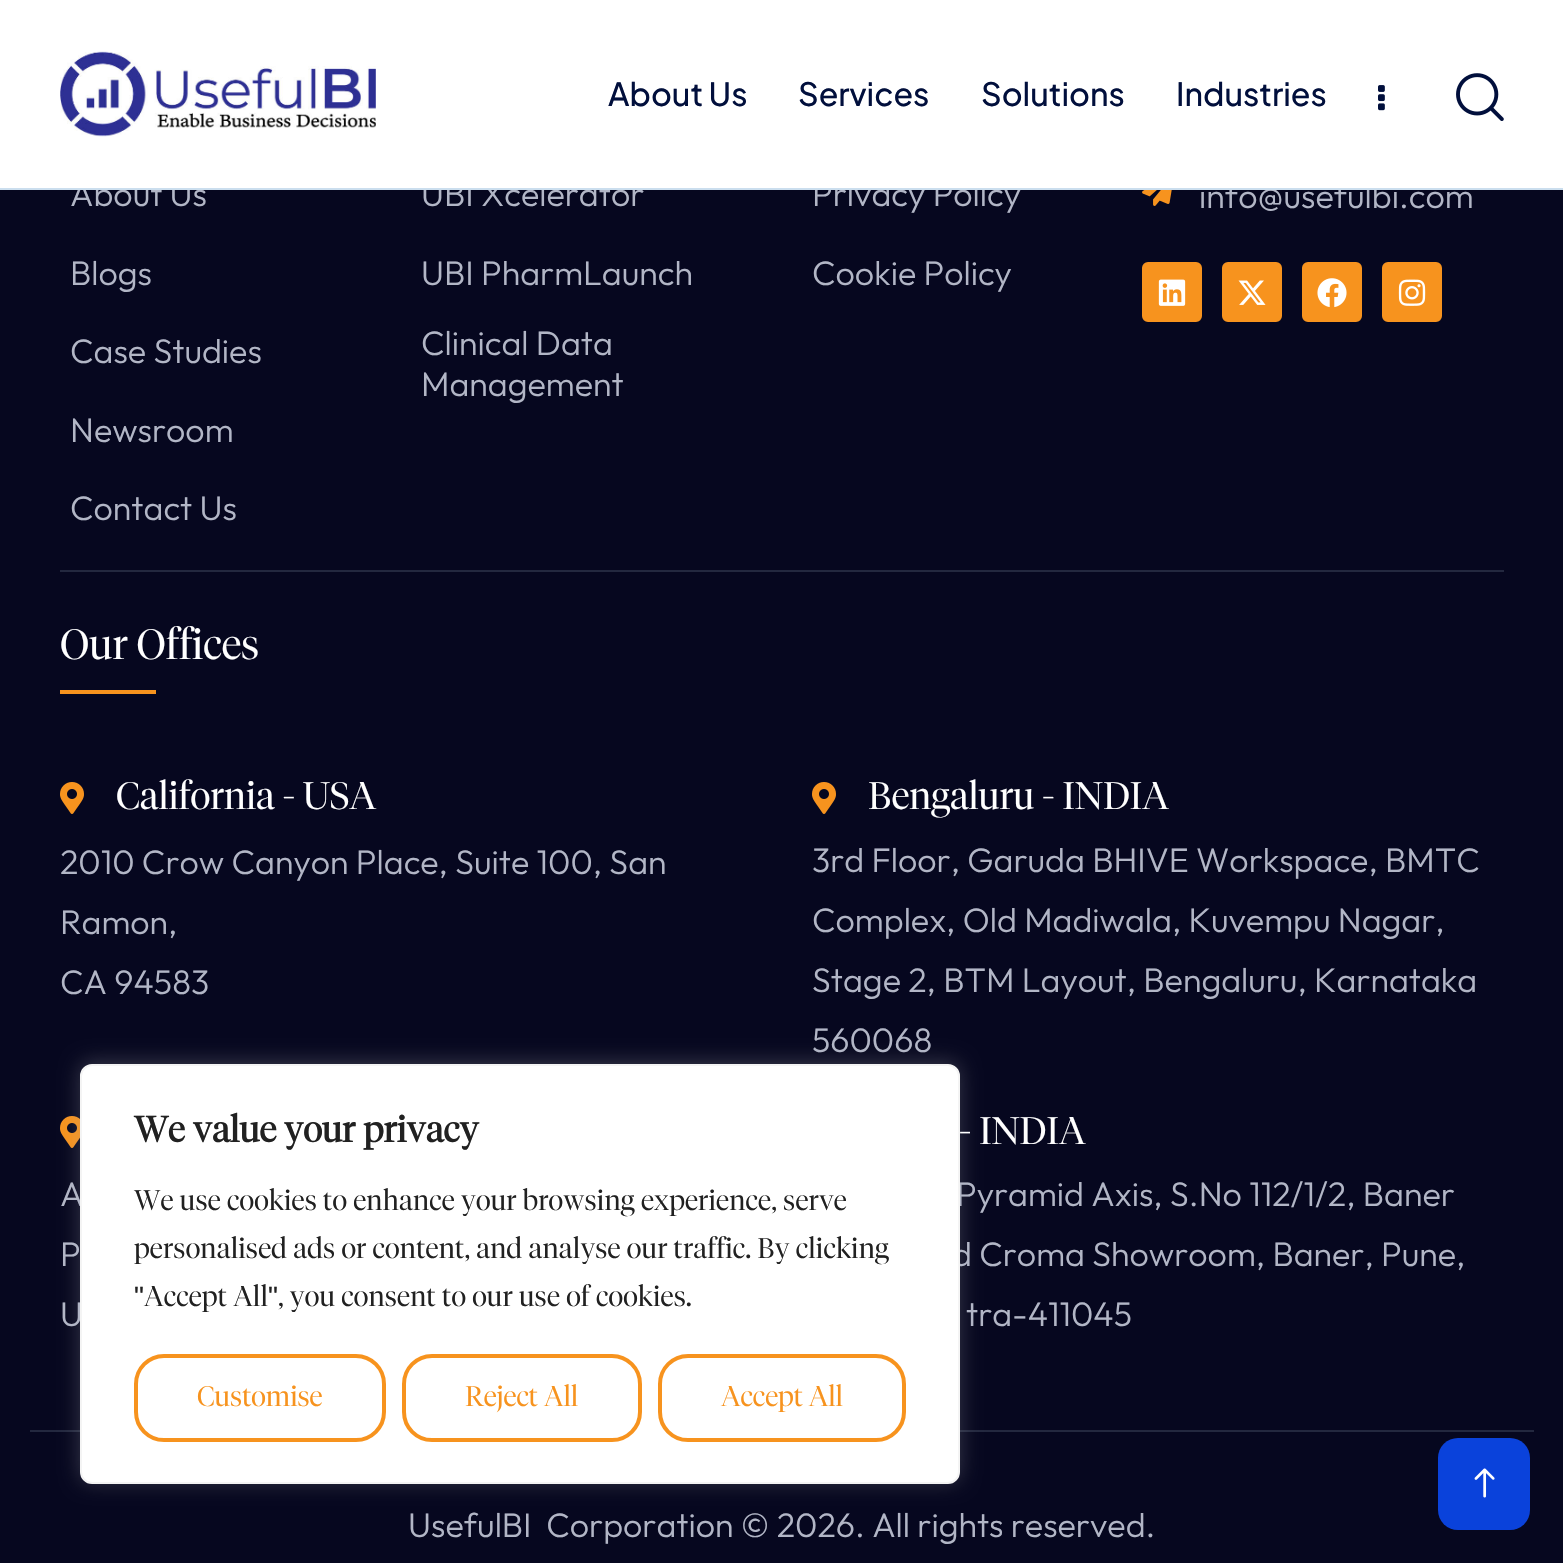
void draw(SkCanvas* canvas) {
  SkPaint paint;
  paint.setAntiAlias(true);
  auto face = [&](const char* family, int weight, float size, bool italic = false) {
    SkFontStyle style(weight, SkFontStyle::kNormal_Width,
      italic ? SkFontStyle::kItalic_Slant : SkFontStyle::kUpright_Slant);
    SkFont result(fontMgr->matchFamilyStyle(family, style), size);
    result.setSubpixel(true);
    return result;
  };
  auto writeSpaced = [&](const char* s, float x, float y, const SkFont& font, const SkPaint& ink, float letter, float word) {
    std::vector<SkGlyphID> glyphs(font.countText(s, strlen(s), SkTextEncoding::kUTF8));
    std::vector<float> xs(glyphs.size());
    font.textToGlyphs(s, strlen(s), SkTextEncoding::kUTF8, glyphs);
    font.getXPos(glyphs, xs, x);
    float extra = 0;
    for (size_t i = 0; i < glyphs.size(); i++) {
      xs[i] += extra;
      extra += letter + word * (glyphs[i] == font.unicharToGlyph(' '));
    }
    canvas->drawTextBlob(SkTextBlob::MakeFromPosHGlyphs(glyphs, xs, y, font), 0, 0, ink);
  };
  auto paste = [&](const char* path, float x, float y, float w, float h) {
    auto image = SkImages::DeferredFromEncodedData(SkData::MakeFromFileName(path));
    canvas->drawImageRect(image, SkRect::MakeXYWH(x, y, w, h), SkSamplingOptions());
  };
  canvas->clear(0xff06071f);
  paste("img/4.png", 1142, 190, 30, 16);
  paint.setColor(0xfff7931e);
  canvas->drawRoundRect(SkRect::MakeXYWH(1143, 263, 58, 58), 5, 5, paint);
  paint.setStroke(true);
  paint.setStrokeWidth(2);
  canvas->drawRoundRect(SkRect::MakeXYWH(1143, 263, 58, 58), 5, 5, paint);
  paste("img/5.png", 1158, 279, 28, 27);
  paint.setStroke(false);
  canvas->drawRoundRect(SkRect::MakeXYWH(1223, 263, 58, 58), 5, 5, paint);
  paint.setStroke(true);
  canvas->drawRoundRect(SkRect::MakeXYWH(1223, 263, 58, 58), 5, 5, paint);
  paste("img/6.png", 1238, 280, 28, 25);
  paint.setStroke(false);
  canvas->drawRoundRect(SkRect::MakeXYWH(1303, 263, 58, 58), 5, 5, paint);
  paint.setStroke(true);
  canvas->drawRoundRect(SkRect::MakeXYWH(1303, 263, 58, 58), 5, 5, paint);
  paste("img/7.png", 1317, 278, 30, 30);
  paint.setStroke(false);
  canvas->drawRoundRect(SkRect::MakeXYWH(1383, 263, 58, 58), 5, 5, paint);
  paint.setStroke(true);
  canvas->drawRoundRect(SkRect::MakeXYWH(1383, 263, 58, 58), 5, 5, paint);
  paste("img/8.png", 1398, 279, 28, 27);
  paint.setStroke(false);
  paint.setColor(0xff23283f);
  canvas->drawRect(SkRect::MakeXYWH(60, 570, 1444, 2), paint);
  paint.setColor(0xfff7931e);
  canvas->drawRect(SkRect::MakeXYWH(60, 690, 96, 4), paint);
  paste("img/9.png", 60, 782, 24, 32);
  paste("img/9.png", 812, 782, 24, 32);
  paste("img/10.png", 60, 1116, 20, 32);
  paint.setColor(0xff23283f);
  canvas->drawRect(SkRect::MakeXYWH(30, 1430, 1504, 2), paint);
  paint.setColor(0x4dacabab);
  paint.setMaskFilter(SkMaskFilter::MakeBlur(kNormal_SkBlurStyle, 10));
  canvas->drawRoundRect(SkRect::MakeXYWH(80, 1062, 880, 420), 12, 12, paint);
  paint.setMaskFilter(nullptr);
  paint.setColor(0xff0a42db);
  canvas->drawRoundRect(SkRect::MakeXYWH(1438, 1438, 92, 92), 20, 20, paint);
  paste("img/11.png", 1474, 1468, 21, 30);
  auto f0 = face("Outfit", 300, 34);
  paint.setColor(0xffb2b6c6);
  {
    const struct { const char* s; float x, y; } items[] = {
      {"About Us", 70, 206},
      {"Blogs", 70, 285},
      {"Case Studies", 70, 363},
      {"Newsroom", 70, 442},
      {"Contact Us", 70, 520},
      {"UBI Xcelerator", 421, 206},
      {"UBI PharmLaunch", 421, 285},
      {"Clinical Data", 421, 355},
      {"Management", 421, 396},
      {"Privacy Policy", 812, 206},
      {"Cookie Policy", 812, 285},
      {"info@usefulbi.com", 1199, 208},
    };
    for (auto [s, x, y] : items) {
      canvas->drawString(s, x, y, f0, paint);
    }
  }
  paint.setColor(0xffffffff);
  canvas->drawRect(SkRect::MakeXYWH(0, 0, 1563, 188), paint);
  auto f1 = face("Plus Jakarta Sans", 500, 32);
  paint.setColor(0xff010f3c);
  {
    const struct { const char* s; float x, y; } items[] = {
      {"About Us", 608, 106},
      {"Services", 798, 106},
      {"Solutions", 981, 106},
      {"Industries", 1176, 106},
    };
    for (auto [s, x, y] : items) {
      canvas->drawString(s, x, y, f1, paint);
    }
  }
  paste("img/2.png", 1378, 85, 7, 26);
  paste("img/3.png", 1456, 73, 48, 48);
  paste("img/1.png", 60, 51, 316, 86);
  paint.setColor(0xffcbdeee);
  canvas->drawRect(SkRect::MakeXYWH(0, 188, 1563, 2), paint);
  auto f2 = face("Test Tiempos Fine", 300, 42);
  paint.setColor(0xffffffff);
  canvas->drawString("Our Offices", 60, 659, f2, paint);
  auto f3 = face("Test Tiempos Fine", 300, 38);
  canvas->drawString("California - USA", 116, 809, f3, paint);
  paint.setColor(0xffb2b6c6);
  {
    const struct { const char* s; float x, y; } items[] = {
      {"2010 Crow Canyon Place, Suite 100, San", 60, 874},
      {"Ramon,", 60, 934},
      {"CA 94583", 60, 994},
    };
    for (auto [s, x, y] : items) {
      canvas->drawString(s, x, y, f0, paint);
    }
  }
  paint.setColor(0xffffffff);
  canvas->drawString("Bengaluru - INDIA", 868, 809, f3, paint);
  paint.setColor(0xffb2b6c6);
  {
    const struct { const char* s; float x, y; } items[] = {
      {"3rd Floor, Garuda BHIVE Workspace, BMTC", 812, 872},
      {"Complex, Old Madiwala, Kuvempu Nagar,", 812, 932},
      {"Stage 2, BTM Layout, Bengaluru, Karnataka", 812, 992},
      {"560068", 812, 1052},
      {"A", 60, 1206},
      {"P", 60, 1266},
      {"U", 60, 1326},
    };
    for (auto [s, x, y] : items) {
      canvas->drawString(s, x, y, f0, paint);
    }
  }
  paint.setColor(0xffffffff);
  canvas->drawString("- INDIA", 959, 1144, f3, paint);
  paint.setColor(0xffb2b6c6);
  {
    const struct { const char* s; float x, y; } items[] = {
      {"Pyramid Axis, S.No 112/1/2, Baner", 956, 1206},
      {"d Croma Showroom, Baner, Pune,", 952, 1266},
      {"tra-411045", 966, 1326},
      {"UsefulBI  Corporation © 2026. All rights reserved.", 408, 1537},
    };
    for (auto [s, x, y] : items) {
      canvas->drawString(s, x, y, f0, paint);
    }
  }
  paint.setColor(0xffffffff);
  canvas->drawRoundRect(SkRect::MakeXYWH(81, 1065, 878, 418), 11, 11, paint);
  paint.setStroke(true);
  paint.setColor(0xfff4f4f4);
  canvas->drawRoundRect(SkRect::MakeXYWH(81, 1065, 878, 418), 11, 11, paint);
  auto f4 = face("Test Tiempos Fine", 700, 36);
  paint.setStroke(false);
  paint.setColor(0xff212121);
  writeSpaced("We value your privacy", 134, 1142, f4, paint, 0.2f, 0);
  auto f5 = face("Test Tiempos Fine", 300, 28);
  writeSpaced("We use cookies to enhance your browsing experience, serve", 134, 1210, f5, paint, 0.2f, 0);
  writeSpaced("personalised ads or content, and analyse our traffic. By clicking", 134, 1258, f5, paint, 0.2f, 0);
  auto f6 = face("Liberation Sans", 400, 28);
  writeSpaced("\"", 134, 1306, f6, paint, 0.2f, 0);
  writeSpaced("Accept All", 144, 1306, f5, paint, 0.2f, 0);
  writeSpaced("\"", 268, 1306, f6, paint, 0.2f, 0);
  writeSpaced(", you consent to our use of cookies.", 278, 1306, f5, paint, 0.2f, 0);
  paint.setStroke(true);
  paint.setStrokeWidth(4);
  paint.setColor(0xfff7931e);
  canvas->drawRoundRect(SkRect::MakeXYWH(136, 1356, 248, 84), 28, 28, paint);
  paint.setStroke(false);
  canvas->drawString("Customise", 197, 1406, f5, paint);
  paint.setStroke(true);
  canvas->drawRoundRect(SkRect::MakeXYWH(404, 1356, 236, 84), 28, 28, paint);
  paint.setStroke(false);
  canvas->drawString("Reject All", 465, 1406, f5, paint);
  paint.setStroke(true);
  canvas->drawRoundRect(SkRect::MakeXYWH(660, 1356, 244, 84), 28, 28, paint);
  paint.setStroke(false);
  canvas->drawString("Accept All", 721, 1406, f5, paint);
}
